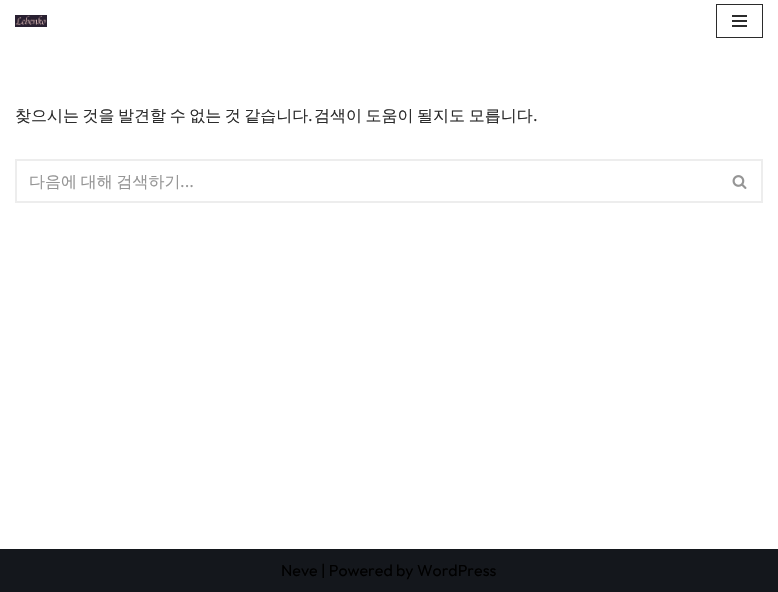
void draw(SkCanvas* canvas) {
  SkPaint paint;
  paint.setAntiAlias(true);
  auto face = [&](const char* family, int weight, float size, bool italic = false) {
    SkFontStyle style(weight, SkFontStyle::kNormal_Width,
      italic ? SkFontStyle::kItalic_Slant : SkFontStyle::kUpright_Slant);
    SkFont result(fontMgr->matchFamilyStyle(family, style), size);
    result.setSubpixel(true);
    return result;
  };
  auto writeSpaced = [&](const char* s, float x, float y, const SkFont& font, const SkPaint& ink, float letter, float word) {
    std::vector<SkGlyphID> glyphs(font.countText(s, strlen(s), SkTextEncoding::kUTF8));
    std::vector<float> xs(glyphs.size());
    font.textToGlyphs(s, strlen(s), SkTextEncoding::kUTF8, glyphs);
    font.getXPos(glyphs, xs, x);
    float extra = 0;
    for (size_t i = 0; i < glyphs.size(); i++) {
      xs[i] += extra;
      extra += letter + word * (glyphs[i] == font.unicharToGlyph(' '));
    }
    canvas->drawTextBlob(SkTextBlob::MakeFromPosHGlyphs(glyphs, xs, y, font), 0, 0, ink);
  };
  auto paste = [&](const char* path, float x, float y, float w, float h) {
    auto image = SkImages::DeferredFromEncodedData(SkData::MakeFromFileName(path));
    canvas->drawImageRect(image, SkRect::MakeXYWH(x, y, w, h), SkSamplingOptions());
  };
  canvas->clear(0xffffffff);
  paste("img/1.png", 15, 15, 32, 12);
  paint.setStroke(true);
  paint.setStrokeWidth(1);
  paint.setColor(0xff2b2b2b);
  canvas->drawRect(SkRect::MakeXYWH(716.5f, 4.5f, 46, 33), paint);
  paint.setStroke(false);
  {
    const struct { float x, y, w, h; SkColor color; } items[] = {
      {732, 15, 15, 2, 0xff2b2b2b},
      {732, 20, 15, 2, 0xff2b2b2b},
      {732, 25, 15, 2, 0xff2b2b2b},
      {15, 159, 748, 2, 0xffededed},
      {15, 201, 703, 2, 0xffededed},
      {15, 159, 2, 44, 0xffededed},
      {761, 159, 2, 44, 0xffededed},
      {718, 201, 45, 2, 0xffededed},
    };
    for (auto [x, y, w, h, color] : items) {
      paint.setColor(color);
      canvas->drawRect(SkRect::MakeXYWH(x, y, w, h), paint);
    }
  }
  paste("img/2.png", 732, 175, 15, 14);
  paint.setColor(0xff14171c);
  canvas->drawRect(SkRect::MakeXYWH(0, 549, 778, 43), paint);
  auto f0 = face("WenQuanYi Zen Hei", 500, 16);
  paint.setColor(0xff2b2b2b);
  writeSpaced("찾으시는 것을 발견할 수 없는 것 같습니다", 15, 121, f0, paint, 0, -1.25f);
  auto f1 = face("Outfit", 400, 16);
  canvas->drawString(".", 308, 121, f1, paint);
  writeSpaced("검색이 도움이 될지도 모릅니다", 314, 121, f0, paint, 0, -1.25f);
  canvas->drawString(".", 533, 121, f1, paint);
  paint.setColor(0xff959595);
  writeSpaced("다음에 대해 검색하기", 29, 187, f0, paint, 0, -1);
  canvas->drawString("...", 180, 187, f1, paint);
  paint.setColor(0xff000000);
  canvas->drawString("Neve | Powered by WordPress", 281, 576, f1, paint);
}
